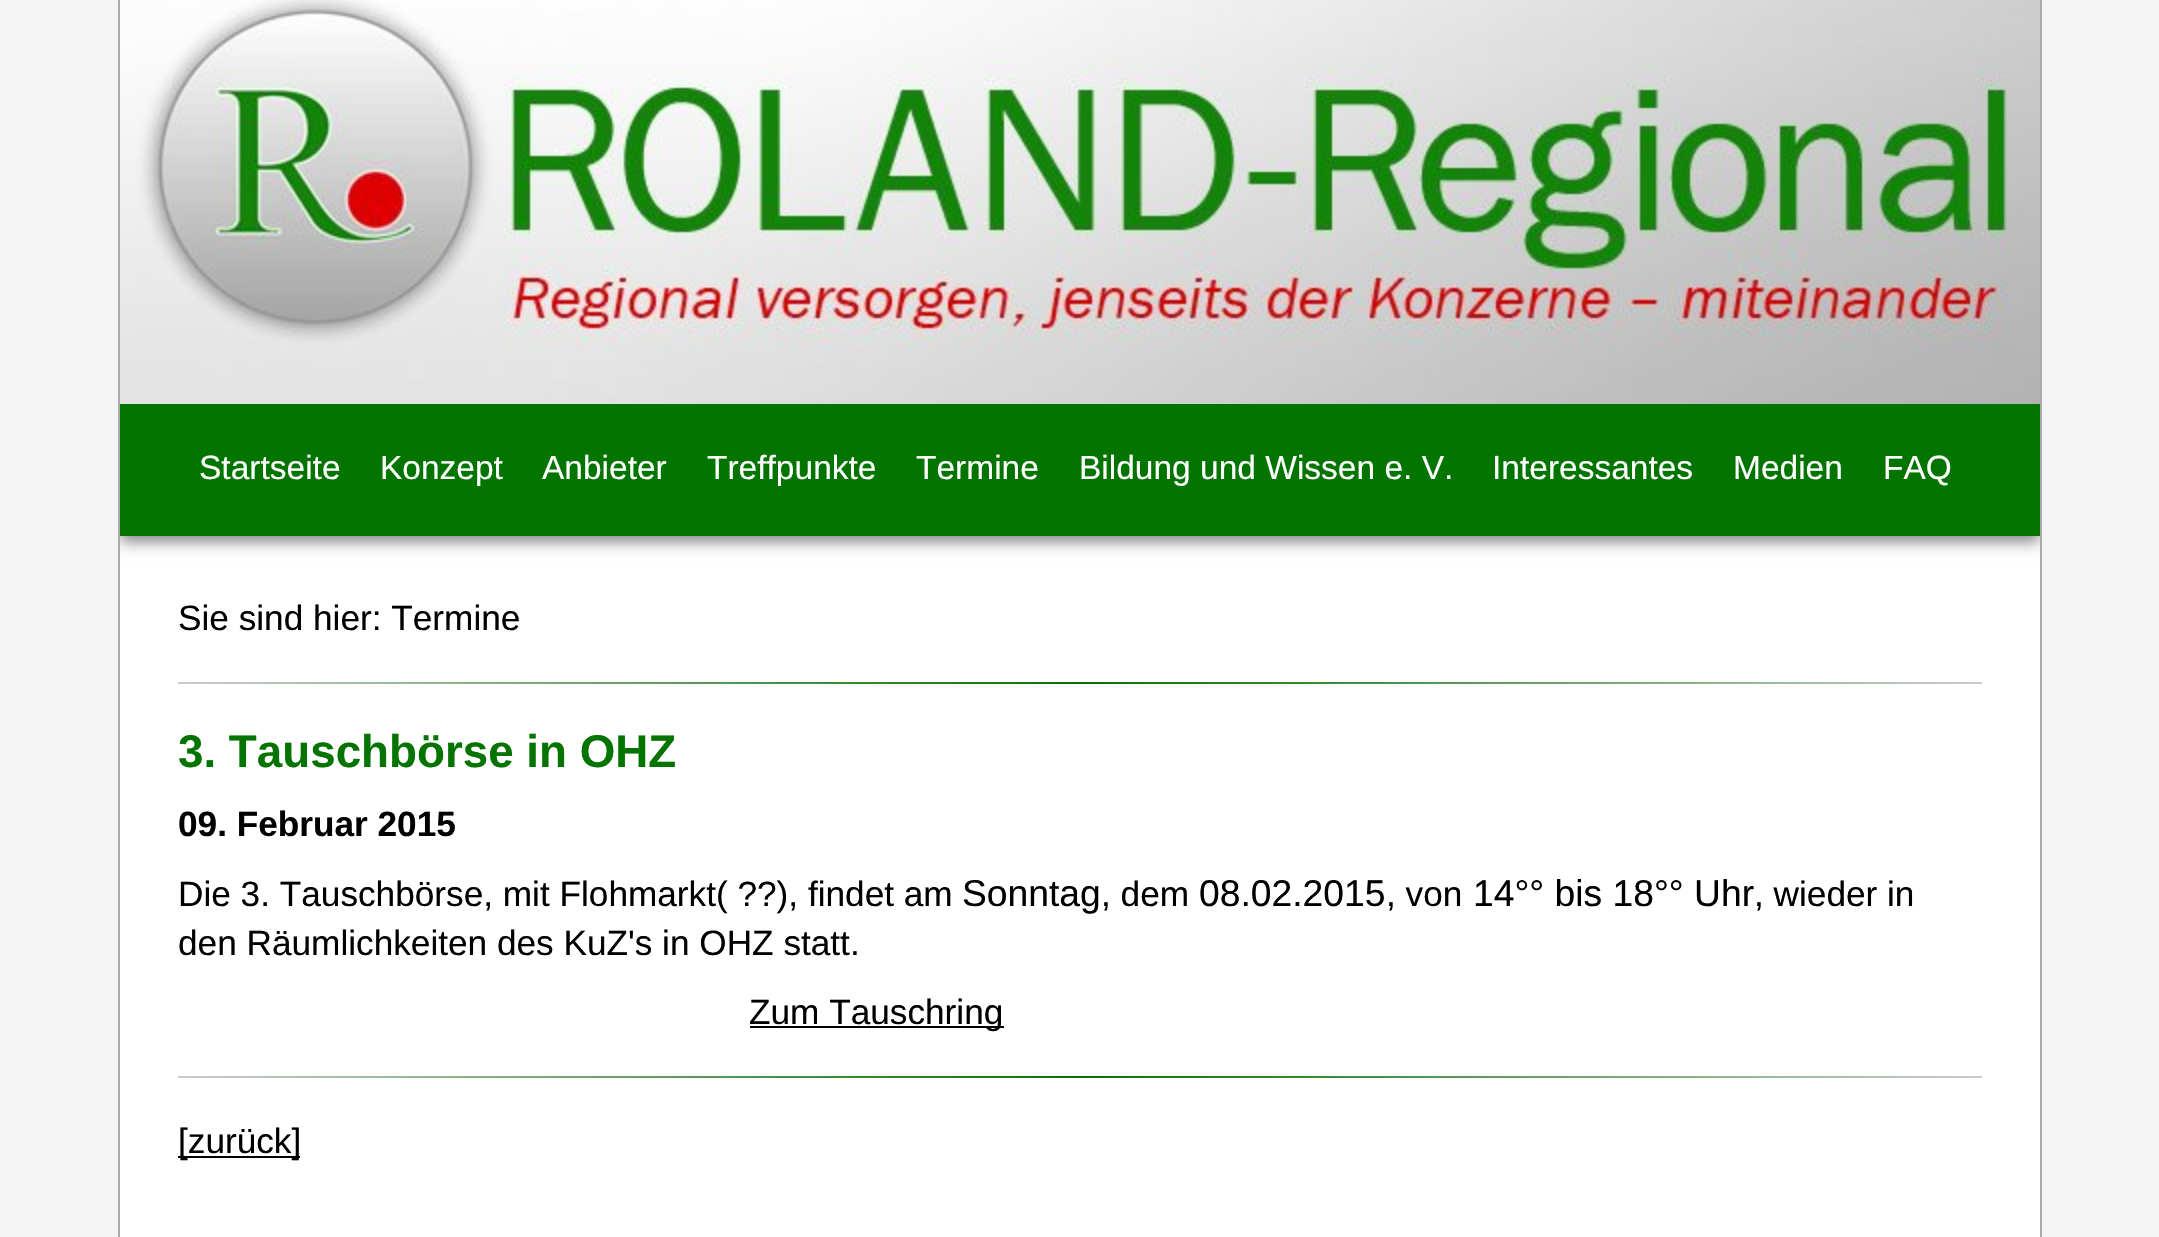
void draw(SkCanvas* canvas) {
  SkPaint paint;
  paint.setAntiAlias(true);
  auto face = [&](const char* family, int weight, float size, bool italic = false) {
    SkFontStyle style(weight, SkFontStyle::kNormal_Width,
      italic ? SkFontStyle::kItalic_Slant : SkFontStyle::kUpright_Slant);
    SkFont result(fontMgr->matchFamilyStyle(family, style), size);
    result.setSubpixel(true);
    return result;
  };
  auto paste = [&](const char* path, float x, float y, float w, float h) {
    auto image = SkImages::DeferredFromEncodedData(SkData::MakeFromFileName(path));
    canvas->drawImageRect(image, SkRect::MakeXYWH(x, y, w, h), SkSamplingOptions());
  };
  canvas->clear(0xfff5f5f5);
  {
    const struct { float x, y, w, h; SkColor color; } items[] = {
      {2040, 0, 2, 1237, 0xffaaaaaa},
      {118, 0, 2, 1237, 0xffaaaaaa},
      {120, 536, 1920, 701, 0xffffffff},
    };
    for (auto [x, y, w, h, color] : items) {
      paint.setColor(color);
      canvas->drawRect(SkRect::MakeXYWH(x, y, w, h), paint);
    }
  }
  canvas->save();
  canvas->clipRect(SkRect::MakeXYWH(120, 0, 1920, 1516));
  paint.setColor(0xff888888);
  paint.setMaskFilter(SkMaskFilter::MakeBlur(kNormal_SkBlurStyle, 7));
  canvas->drawRect(SkRect::MakeXYWH(120, -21, 1920, 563), paint);
  paint.setMaskFilter(nullptr);
  canvas->restore();
  paint.setColor(0xff037400);
  canvas->drawRect(SkRect::MakeXYWH(120, 404, 1920, 132), paint);
  paste("img/1.png", 120, 0, 1920, 404);
  {
    const SkColor colors[] = {0xffcccccc, 0xff037400, 0xffcccccc};
    const float stops[] = {0, 0.5f, 1};
    const SkPoint ends[] = {{178, 683}, {1982, 683}};
    paint.setShader(SkGradientShader::MakeLinear(ends, colors, stops, 3, SkTileMode::kClamp));
    paint.setAlpha(255);
  }
  canvas->drawRect(SkRect::MakeXYWH(178, 682, 1804, 2), paint);
  paint.setShader(nullptr);
  paint.setColor(0xff000000);
  canvas->drawRect(SkRect::MakeXYWH(750, 1026, 254, 2), paint);
  {
    const SkColor colors[] = {0xffcccccc, 0xff037400, 0xffcccccc};
    const float stops[] = {0, 0.5f, 1};
    const SkPoint ends[] = {{178, 1077}, {1982, 1077}};
    paint.setShader(SkGradientShader::MakeLinear(ends, colors, stops, 3, SkTileMode::kClamp));
    paint.setAlpha(255);
  }
  canvas->drawRect(SkRect::MakeXYWH(178, 1076, 1804, 2), paint);
  paint.setShader(nullptr);
  paint.setColor(0xff000000);
  canvas->drawRect(SkRect::MakeXYWH(178, 1156, 122, 2), paint);
  auto f0 = face("Liberation Sans", 400, 33.5f);
  paint.setColor(0xffffffff);
  {
    const struct { const char* s; float x, y; } items[] = {
      {"Startseite", 199, 479},
      {"Konzept", 380, 479},
      {"Anbieter", 542, 479},
      {"Treffpunkte", 707, 479},
      {"Termine", 916, 479},
      {"Bildung und Wissen e. V.", 1079, 479},
      {"Interessantes", 1492, 479},
      {"Medien", 1733, 479},
      {"FAQ", 1883, 479},
    };
    for (auto [s, x, y] : items) {
      canvas->drawString(s, x, y, f0, paint);
    }
  }
  auto f1 = face("Liberation Sans", 400, 35.2f);
  paint.setColor(0xff000000);
  canvas->drawString("Sie sind hier: Termine", 178, 630, f1, paint);
  auto f2 = face("Liberation Sans", 700, 45.75f);
  paint.setColor(0xff037400);
  canvas->drawString("3. Tauschbörse in OHZ", 178, 767, f2, paint);
  auto f3 = face("Liberation Sans", 700, 35.2f);
  paint.setColor(0xff000000);
  canvas->drawString("09. Februar 2015", 178, 836, f3, paint);
  canvas->drawString("Die 3. Tauschbörse, mit Flohmarkt( ?\077), findet am", 178, 906, f1, paint);
  auto f4 = face("Liberation Sans", 400, 37.25f);
  canvas->drawString("Sonntag", 962, 906, f4, paint);
  canvas->drawString(", dem", 1101, 906, f1, paint);
  canvas->drawString("08.02.2015", 1199, 906, f4, paint);
  canvas->drawString(", von", 1386, 906, f1, paint);
  canvas->drawString("14°° bis 18°° Uhr", 1473, 906, f4, paint);
  {
    const struct { const char* s; float x, y; } items[] = {
      {", wieder in", 1754, 906},
      {"den Räumlichkeiten des KuZ's in OHZ statt.", 178, 955},
      {"Zum Tauschring", 749, 1024},
      {"[zurück]", 178, 1153},
    };
    for (auto [s, x, y] : items) {
      canvas->drawString(s, x, y, f1, paint);
    }
  }
}
